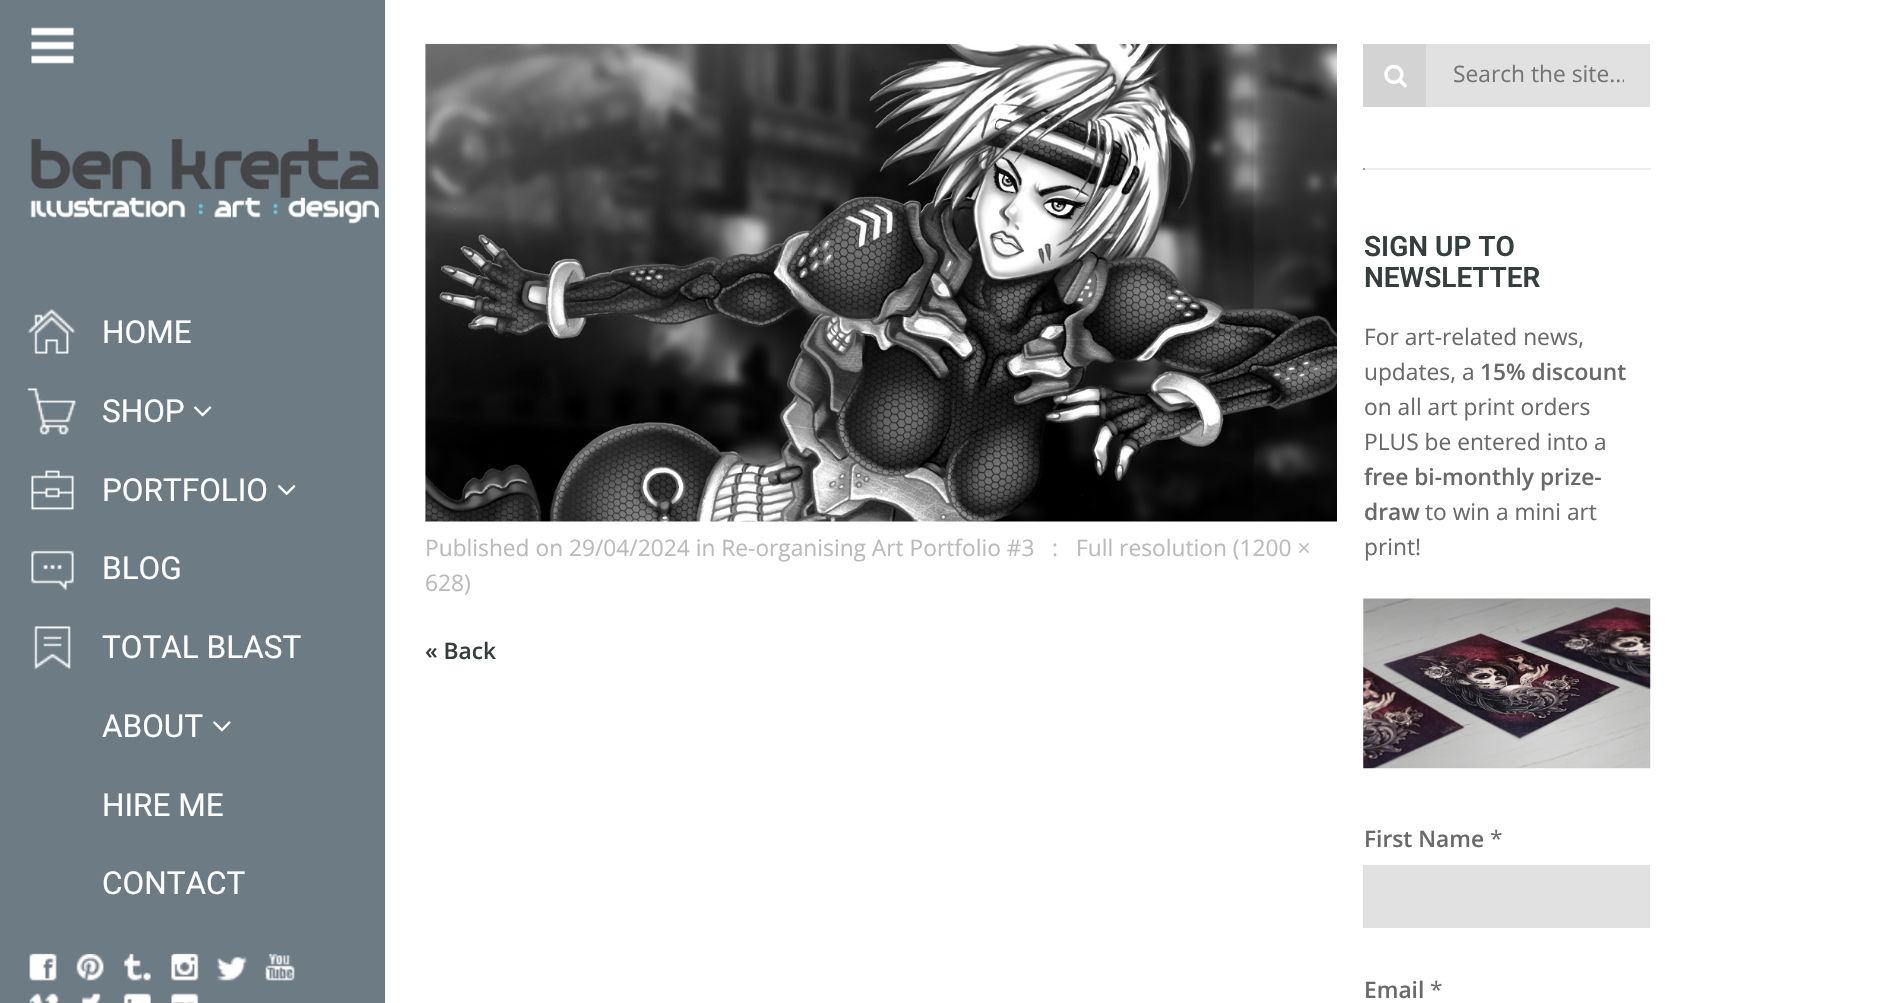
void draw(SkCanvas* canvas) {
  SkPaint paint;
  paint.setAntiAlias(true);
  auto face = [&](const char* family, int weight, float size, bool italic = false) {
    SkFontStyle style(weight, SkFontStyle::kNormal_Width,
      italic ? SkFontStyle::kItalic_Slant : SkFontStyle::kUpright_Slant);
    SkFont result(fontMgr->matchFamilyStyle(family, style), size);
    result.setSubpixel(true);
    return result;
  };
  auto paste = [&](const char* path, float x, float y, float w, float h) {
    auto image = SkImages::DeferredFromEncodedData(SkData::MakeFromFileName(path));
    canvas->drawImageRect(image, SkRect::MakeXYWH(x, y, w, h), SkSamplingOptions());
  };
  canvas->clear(0xffffffff);
  paint.setColor(0xff6d7b85);
  canvas->drawRect(SkRect::MakeXYWH(0, 0, 385, 1003), paint);
  paste("img/1.png", 31, 27, 43, 37);
  paste("img/2.png", 30, 139, 349, 85);
  paste("img/3.png", 27, 309, 49, 45);
  paste("img/4.png", 27, 388, 49, 47);
  paste("img/5.png", 193, 406, 19, 11);
  paste("img/6.png", 31, 470, 43, 40);
  paste("img/7.png", 277, 485, 19, 11);
  paste("img/8.png", 31, 550, 43, 41);
  paste("img/9.png", 34, 626, 37, 43);
  paste("img/10.png", 213, 721, 18, 11);
  paste("img/11.png", 29, 953, 28, 28);
  paste("img/12.png", 76, 953, 28, 28);
  paste("img/13.png", 123, 953, 28, 28);
  paste("img/14.png", 171, 953, 28, 28);
  paste("img/15.png", 217, 956, 31, 25);
  paste("img/16.png", 265, 953, 30, 28);
  paste("img/17.png", 29, 993, 30, 10);
  paste("img/18.png", 81, 993, 20, 10);
  paste("img/19.png", 123, 993, 28, 10);
  paste("img/20.png", 171, 993, 28, 10);
  paste("img/21.png", 425, 43, 912, 479);
  paint.setColor(0xffd3d3d3);
  canvas->drawRect(SkRect::MakeXYWH(1363, 44, 63, 63), paint);
  paste("img/22.png", 1384, 64, 23, 24);
  {
    const struct { float x, y, w, h; SkColor color; } items[] = {
      {1426, 44, 224, 63, 0xffe1e1e1},
      {1363, 168, 287, 2, 0xffededed},
      {1649, 168, 2, 2, 0xffeeeeee},
      {1363, 168, 2, 2, 0xff9f9f9f},
    };
    for (auto [x, y, w, h, color] : items) {
      paint.setColor(color);
      canvas->drawRect(SkRect::MakeXYWH(x, y, w, h), paint);
    }
  }
  paste("img/23.png", 1363, 598, 288, 171);
  paint.setColor(0xffe1e1e1);
  canvas->drawRect(SkRect::MakeXYWH(1363, 865, 287, 63), paint);
  auto f0 = face("Roboto", 400, 31.5f);
  paint.setColor(0xffffffff);
  {
    const struct { const char* s; float x, y; } items[] = {
      {"HOME", 102, 343},
      {"SHOP", 102, 422},
      {"PORTFOLIO", 102, 501},
      {"BLOG", 102, 579},
      {"TOTAL BLAST", 102, 658},
      {"ABOUT", 102, 737},
      {"HIRE ME", 102, 816},
      {"CONTACT", 102, 894},
    };
    for (auto [s, x, y] : items) {
      canvas->drawString(s, x, y, f0, paint);
    }
  }
  auto f1 = face("Open Sans", 400, 22.75f);
  paint.setColor(0xffbababa);
  {
    const struct { const char* s; float x, y; } items[] = {
      {"Published on 29/04/2024 in Re-organising Art Portfolio #3", 425, 556},
      {":", 1052, 556},
      {"Full resolution (1200 ×", 1076, 556},
      {"628)", 425, 591},
    };
    for (auto [s, x, y] : items) {
      canvas->drawString(s, x, y, f1, paint);
    }
  }
  auto f2 = face("Open Sans", 600, 22.75f);
  paint.setColor(0xff353e3d);
  canvas->drawString("« Back", 425, 659, f2, paint);
  canvas->save();
  canvas->clipRect(SkRect::MakeXYWH(1453, 58, 171, 31));
  paint.setColor(0xff757575);
  canvas->drawString("Search the site...", 1453, 82, f1, paint);
  canvas->restore();
  auto f3 = face("Roboto", 600, 28);
  paint.setColor(0xff353e3d);
  canvas->drawString("SIGN UP TO", 1364, 256, f3, paint);
  canvas->drawString("NEWSLETTER", 1364, 287, f3, paint);
  paint.setColor(0xff696969);
  canvas->drawString("For art-related news,", 1364, 345, f1, paint);
  canvas->drawString("updates, a", 1364, 380, f1, paint);
  canvas->drawString("15% discount", 1480, 380, f2, paint);
  canvas->drawString("on all art print orders", 1364, 415, f1, paint);
  canvas->drawString("PLUS be entered into a", 1364, 450, f1, paint);
  canvas->drawString("free bi-monthly prize-", 1364, 485, f2, paint);
  canvas->drawString("draw", 1364, 520, f2, paint);
  canvas->drawString("to win a mini art", 1425, 520, f1, paint);
  canvas->drawString("print!", 1364, 555, f1, paint);
  canvas->drawString("First Name", 1364, 847, f2, paint);
  canvas->drawString("*", 1490, 847, f1, paint);
  canvas->drawString("Email", 1364, 998, f2, paint);
  canvas->drawString("*", 1430, 998, f1, paint);
}
